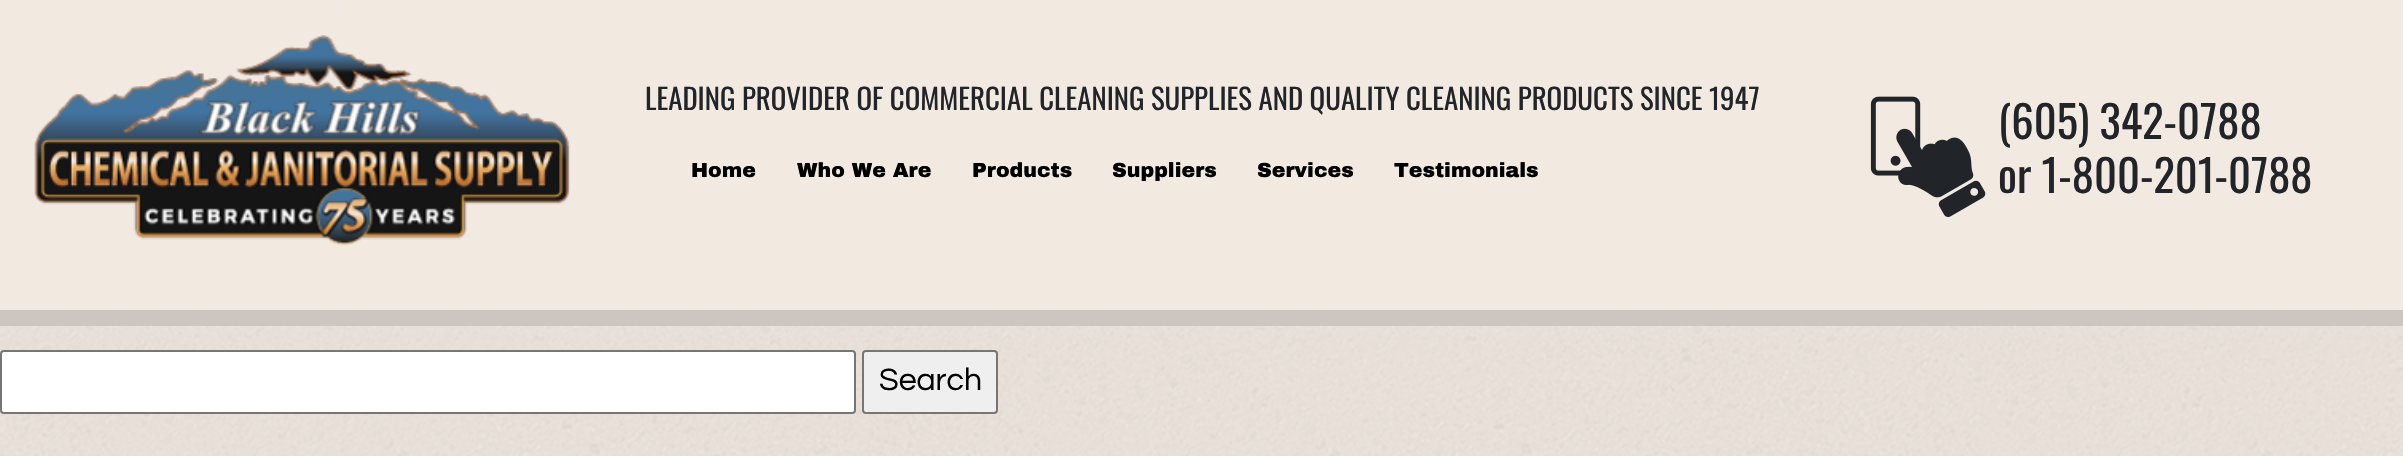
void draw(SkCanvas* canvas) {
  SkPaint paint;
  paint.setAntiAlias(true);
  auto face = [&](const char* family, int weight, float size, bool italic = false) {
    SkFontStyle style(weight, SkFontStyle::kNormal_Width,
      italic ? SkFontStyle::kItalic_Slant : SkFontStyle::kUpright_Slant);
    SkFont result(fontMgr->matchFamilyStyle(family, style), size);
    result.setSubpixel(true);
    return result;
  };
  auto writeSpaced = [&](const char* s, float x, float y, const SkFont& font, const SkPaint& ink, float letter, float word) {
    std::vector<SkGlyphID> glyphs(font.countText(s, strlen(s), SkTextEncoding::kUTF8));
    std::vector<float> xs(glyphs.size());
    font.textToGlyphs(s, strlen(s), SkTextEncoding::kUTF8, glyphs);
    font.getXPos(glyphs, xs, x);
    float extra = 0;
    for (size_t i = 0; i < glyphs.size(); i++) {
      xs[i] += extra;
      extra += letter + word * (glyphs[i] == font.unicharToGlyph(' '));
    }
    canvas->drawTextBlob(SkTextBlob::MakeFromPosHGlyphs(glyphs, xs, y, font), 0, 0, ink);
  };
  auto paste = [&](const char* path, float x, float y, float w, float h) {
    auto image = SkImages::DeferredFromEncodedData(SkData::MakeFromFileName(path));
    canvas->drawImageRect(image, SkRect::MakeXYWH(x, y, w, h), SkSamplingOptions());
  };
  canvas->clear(0xffffffff);
  paste("img/1.png", 0, 0, 2403, 456);
  paint.setColor(0xf2f2eae2);
  canvas->drawRect(SkRect::MakeXYWH(0, 0, 2403, 310), paint);
  paint.setColor(0xffcdc6c0);
  canvas->drawRect(SkRect::MakeXYWH(0, 310, 2403, 16), paint);
  paste("img/2.png", 34, 35, 536, 211);
  paste("img/4.png", 1896, 128, 90, 89);
  paste("img/3.png", 1870, 96, 51, 80);
  paint.setColor(0xffffffff);
  canvas->drawRoundRect(SkRect::MakeXYWH(1, 351, 854, 62), 3, 3, paint);
  paint.setStroke(true);
  paint.setStrokeWidth(2);
  paint.setColor(0xff767676);
  canvas->drawRoundRect(SkRect::MakeXYWH(1, 351, 854, 62), 3, 3, paint);
  paint.setStroke(false);
  paint.setColor(0xffefefef);
  canvas->drawRoundRect(SkRect::MakeXYWH(863, 351, 134, 62), 3, 3, paint);
  paint.setStroke(true);
  paint.setColor(0xff767676);
  canvas->drawRoundRect(SkRect::MakeXYWH(863, 351, 134, 62), 3, 3, paint);
  auto f0 = face("Oswald", 400, 28.85f);
  paint.setStroke(false);
  paint.setColor(0xff212529);
  writeSpaced("LEADING PROVIDER OF COMMERCIAL CLEANING SUPPLIES AND QUALITY CLEANING PRODUCTS SINCE 1947", 645, 110, f0, paint, 0, -0.1f);
  auto f1 = face("Archivo Black", 400, 20.5f);
  paint.setColor(0xff000000);
  {
    const struct { const char* s; float x, y; } items[] = {
      {"Home", 691, 177},
      {"Who We Are", 797, 177},
      {"Products", 972, 177},
      {"Suppliers", 1112, 177},
      {"Services", 1257, 177},
      {"Testimonials", 1394, 177},
    };
    for (auto [s, x, y] : items) {
      canvas->drawString(s, x, y, f1, paint);
    }
  }
  auto f2 = face("Oswald", 400, 44.5f);
  paint.setColor(0xff212529);
  canvas->drawString("(605) 342-0788", 1998, 139, f2, paint);
  canvas->drawString("or 1-800-201-0788", 1998, 193, f2, paint);
  auto f3 = face("Questrial", 400, 32);
  paint.setColor(0xff000000);
  canvas->drawString("Search", 879, 390, f3, paint);
}
